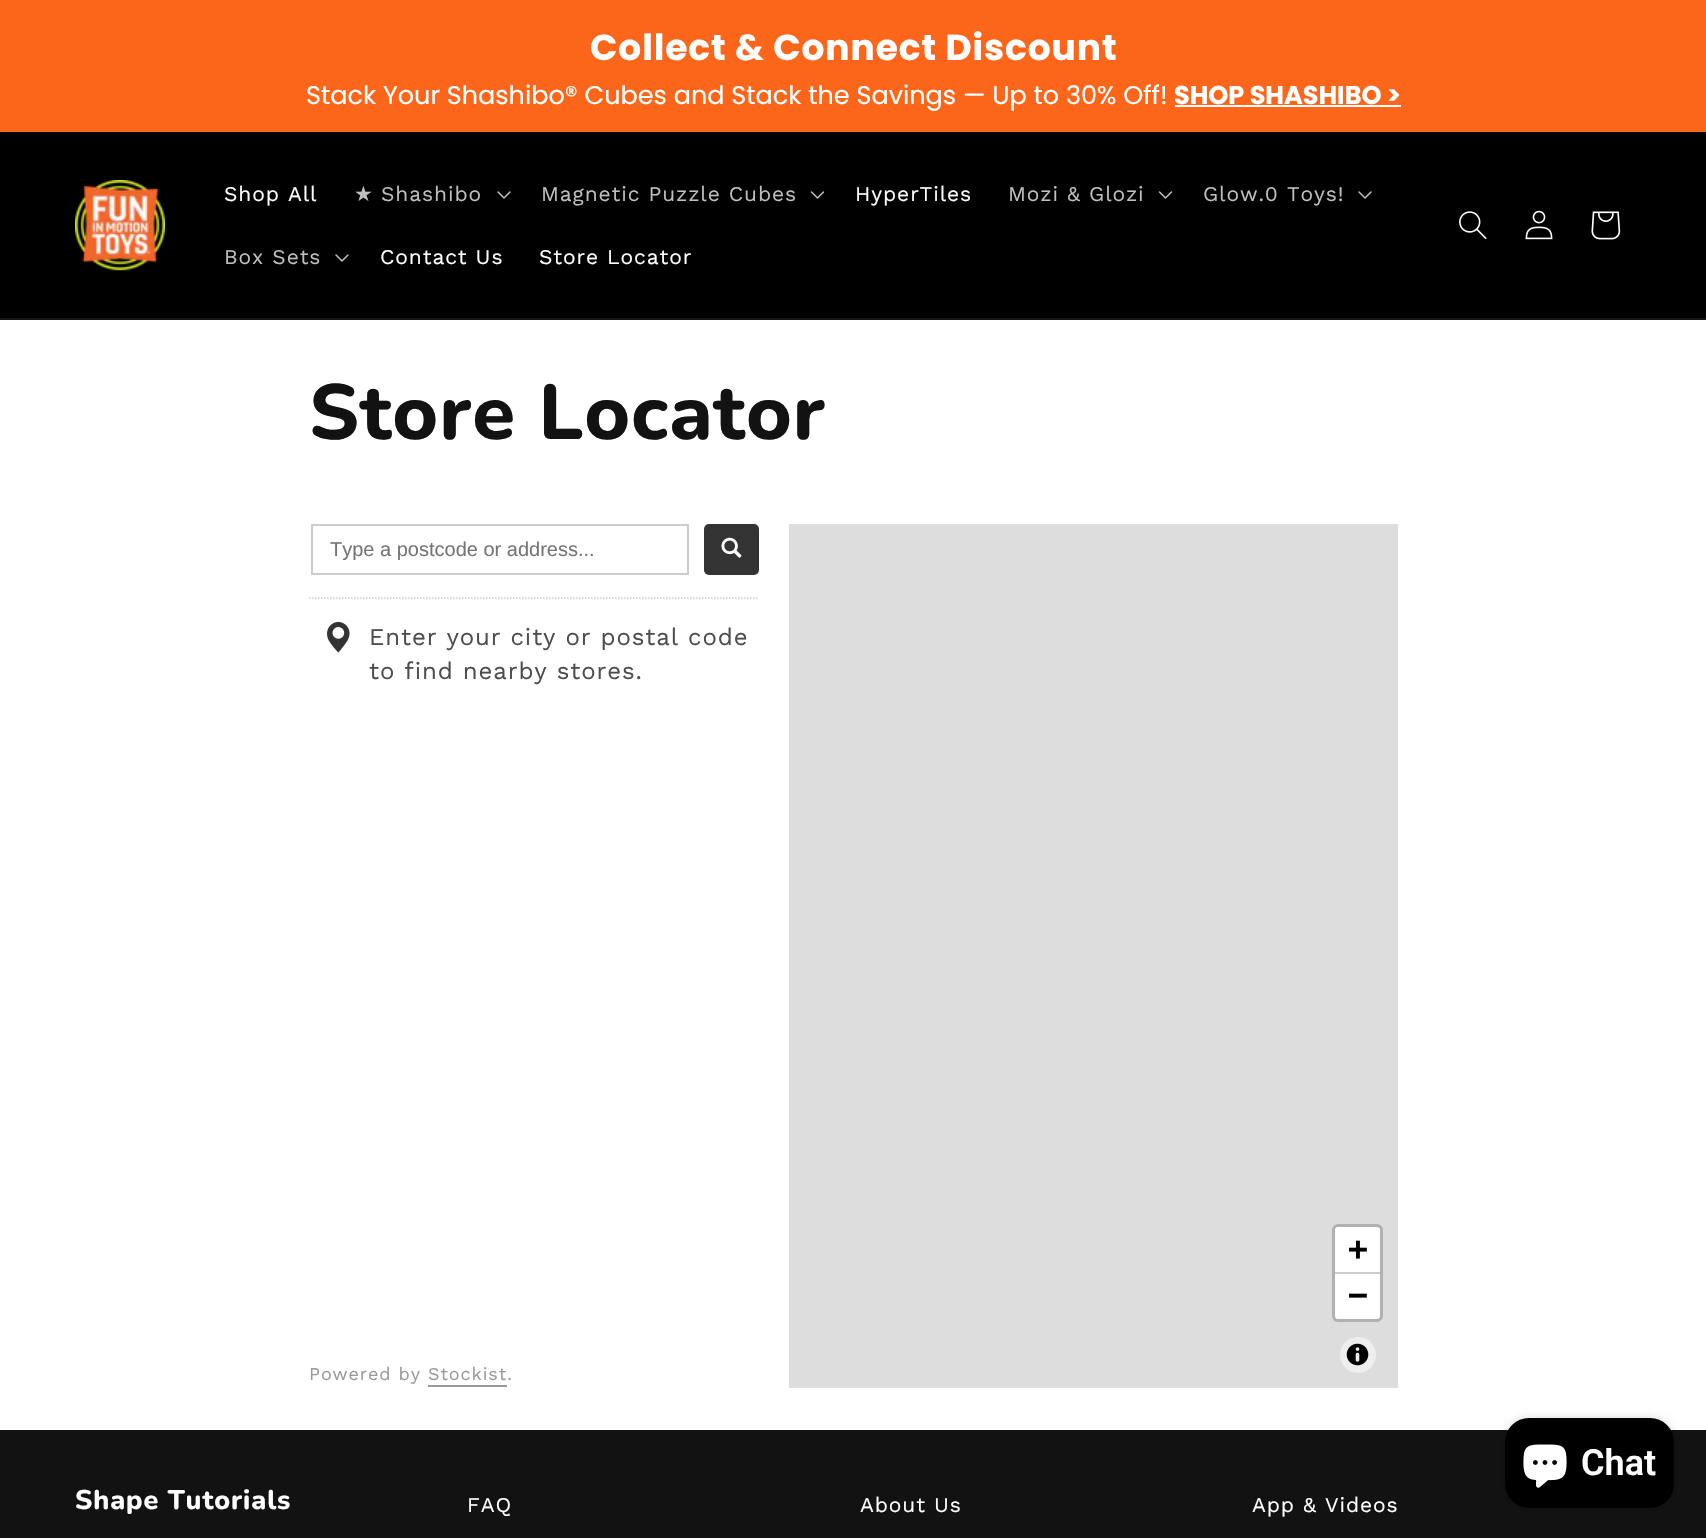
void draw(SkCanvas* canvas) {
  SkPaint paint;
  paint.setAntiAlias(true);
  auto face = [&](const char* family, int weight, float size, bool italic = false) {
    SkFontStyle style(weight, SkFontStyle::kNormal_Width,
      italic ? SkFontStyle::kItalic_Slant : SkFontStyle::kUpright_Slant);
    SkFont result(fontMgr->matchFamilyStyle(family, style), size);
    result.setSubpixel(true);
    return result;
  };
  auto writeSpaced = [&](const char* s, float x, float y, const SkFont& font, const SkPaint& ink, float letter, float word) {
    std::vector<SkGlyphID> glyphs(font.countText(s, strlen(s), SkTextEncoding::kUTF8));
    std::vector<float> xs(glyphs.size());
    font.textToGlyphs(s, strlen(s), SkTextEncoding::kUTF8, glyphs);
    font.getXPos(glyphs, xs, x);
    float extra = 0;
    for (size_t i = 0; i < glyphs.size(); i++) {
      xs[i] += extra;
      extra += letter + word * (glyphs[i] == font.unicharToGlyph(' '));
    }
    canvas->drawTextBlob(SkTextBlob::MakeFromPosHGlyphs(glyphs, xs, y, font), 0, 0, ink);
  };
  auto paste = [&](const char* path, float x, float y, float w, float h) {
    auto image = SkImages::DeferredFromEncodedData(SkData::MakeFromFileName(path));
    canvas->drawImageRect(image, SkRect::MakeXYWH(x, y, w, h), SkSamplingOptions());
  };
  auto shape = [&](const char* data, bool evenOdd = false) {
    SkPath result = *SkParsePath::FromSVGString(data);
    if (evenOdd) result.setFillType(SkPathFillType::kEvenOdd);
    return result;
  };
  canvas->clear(0xffffffff);
  {
    const struct { float x, y, w, h; SkColor color; } items[] = {
      {0, 0, 1706, 132, 0xfffc661a},
      {1175, 105, 226, 2, 0xffffffff},
      {0, 132, 1706, 186, 0xff000000},
      {0, 318, 1706, 2, 0xff141414},
    };
    for (auto [x, y, w, h, color] : items) {
      paint.setColor(color);
      canvas->drawRect(SkRect::MakeXYWH(x, y, w, h), paint);
    }
  }
  paste("img/1.png", 75, 180, 90, 91);
  paste("img/2.png", 497, 191, 14, 8);
  paste("img/3.png", 810, 191, 15, 8);
  paste("img/3.png", 1158, 191, 15, 8);
  paste("img/2.png", 1358, 191, 14, 8);
  paste("img/2.png", 335, 254, 14, 8);
  paste("img/4.png", 1459, 211, 28, 28);
  paste("img/5.png", 1525, 210, 28, 30);
  paste("img/6.png", 1591, 211, 30, 29);
  paint.setStroke(true);
  paint.setStrokeWidth(2);
  paint.setColor(0xffcccccc);
  canvas->drawRect(SkRect::MakeXYWH(312, 525, 376, 49), paint);
  paint.setStroke(false);
  paint.setColor(0xff333333);
  canvas->drawRoundRect(SkRect::MakeXYWH(704, 524, 55, 51), 5, 5, paint);
  paste("img/7.png", 721, 537, 21, 21);
  paint.setStroke(true);
  paint.setStrokeWidth(1.5f);
  paint.setColor(0xffcccccc);
  paint.setPathEffect(SkDashPathEffect::Make({{1.5f, 1.5f}}, 0));
  canvas->drawPath(shape("M309 598H759"), paint);
  paint.setPathEffect(nullptr);
  paste("img/8.png", 327, 621, 23, 32);
  paint.setStroke(false);
  paint.setColor(0xff999999);
  canvas->drawRect(SkRect::MakeXYWH(428, 1385, 79, 2), paint);
  paint.setColor(0xffdddddd);
  canvas->drawRect(SkRect::MakeXYWH(789, 524, 609, 864), paint);
  paint.setStroke(true);
  paint.setStrokeWidth(3);
  paint.setColor(0xffb1b1b1);
  canvas->drawRoundRect(SkRect::MakeXYWH(1333.5f, 1225.5f, 48, 95), 4.5f, 4.5f, paint);
  paint.setStroke(false);
  paint.setColor(0xffffffff);
  canvas->drawPath(shape("M1338 1227H1377C1378.5 1227 1380 1228.5 1380 1230V1274H1335V1230C1335 1228.5 1336.5 1227 1338 1227Z"), paint);
  paint.setColor(0xffcccccc);
  canvas->drawRect(SkRect::MakeXYWH(1335, 1272, 45, 2), paint);
  paint.setColor(0xffffffff);
  canvas->drawPath(shape("M1335 1274H1380V1316C1380 1317.5 1378.5 1319 1377 1319H1338C1336.5 1319 1335 1317.5 1335 1316Z"), paint);
  paint.setColor(0xffeeeeee);
  canvas->drawCircle(1358, 1355, 18, paint);
  paste("img/9.png", 1346, 1343, 23, 23);
  paint.setColor(0xff121212);
  canvas->drawRect(SkRect::MakeXYWH(0, 1430, 1706, 108), paint);
  paint.setColor(0x26000000);
  paint.setMaskFilter(SkMaskFilter::MakeBlur(kNormal_SkBlurStyle, 4));
  canvas->drawRoundRect(SkRect::MakeXYWH(1505, 1418, 169, 90), 24, 24, paint);
  paint.setMaskFilter(nullptr);
  paint.setColor(0xff000000);
  canvas->drawRoundRect(SkRect::MakeXYWH(1505, 1418, 169, 90), 24, 24, paint);
  paste("img/10.png", 1523, 1444, 44, 44);
  auto f0 = face("Poppins", 700, 36);
  paint.setColor(0xffffffff);
  writeSpaced("Collect & Connect Discount", 590, 60, f0, paint, 0.9f, 0);
  auto f1 = face("Poppins", 400, 25.5f);
  canvas->drawString("Stack Your Shashibo® Cubes and Stack the Savings — Up to 30% Off!", 306, 104, f1, paint);
  auto f2 = face("Poppins", 700, 25.5f);
  canvas->drawString("SHOP SHASHIBO >", 1174, 104, f2, paint);
  auto f3 = face("Work Sans", 400, 21);
  writeSpaced("Shop All", 224, 201, f3, paint, 0.9f, 0);
  auto f4 = face("DejaVu Sans", 400, 21);
  paint.setColor(0xffbfbfbf);
  writeSpaced("★", 354, 201, f4, paint, 0.9f, 0);
  writeSpaced("Shashibo", 381, 201, f3, paint, 0.9f, 0);
  writeSpaced("Magnetic Puzzle Cubes", 541, 201, f3, paint, 0.9f, 0);
  paint.setColor(0xffffffff);
  writeSpaced("HyperTiles", 855, 201, f3, paint, 0.9f, 0);
  paint.setColor(0xffbfbfbf);
  {
    const struct { const char* s; float x, y; } items[] = {
      {"Mozi & Glozi", 1008, 201},
      {"Glow.0 Toys!", 1203, 201},
      {"Box Sets", 224, 264},
    };
    for (auto [s, x, y] : items) {
      writeSpaced(s, x, y, f3, paint, 0.9f, 0);
    }
  }
  paint.setColor(0xffffffff);
  writeSpaced("Contact Us", 380, 264, f3, paint, 0.9f, 0);
  writeSpaced("Store Locator", 539, 264, f3, paint, 0.9f, 0);
  auto f5 = face("Nunito", 800, 78);
  paint.setColor(0xff121212);
  writeSpaced("Store Locator", 309, 439, f5, paint, 0.9f, 0);
  canvas->save();
  canvas->clipRect(SkRect::MakeXYWH(330, 537, 339, 23));
  auto f6 = face("Liberation Sans", 400, 20);
  paint.setColor(0xff757575);
  canvas->drawString("Type a postcode or address...", 330, 556, f6, paint);
  canvas->restore();
  auto f7 = face("Work Sans", 400, 24);
  paint.setColor(0xff4d4d4d);
  writeSpaced("Enter your city or postal code", 369, 645, f7, paint, 0.9f, 0);
  writeSpaced("to find nearby stores.", 369, 679, f7, paint, 0.9f, 0);
  auto f8 = face("Work Sans", 400, 18);
  paint.setColor(0xff999999);
  writeSpaced("Powered by Stockist.", 309, 1380, f8, paint, 0.9f, 0);
  auto f9 = face("DejaVu Sans Mono", 700, 33);
  paint.setColor(0xff000000);
  writeSpaced("+", 1348, 1260, f9, paint, 0.9f, 0);
  writeSpaced("−", 1348, 1306, f9, paint, 0.9f, 0);
  auto f10 = face("Roboto", 600, 36);
  paint.setColor(0xffffffff);
  canvas->drawString("Chat", 1581, 1475, f10, paint);
  auto f11 = face("Nunito", 800, 27);
  writeSpaced("Shape Tutorials", 75, 1509, f11, paint, 0.9f, 0);
  {
    const struct { const char* s; float x, y; } items[] = {
      {"FAQ", 467, 1512},
      {"About Us", 860, 1512},
      {"App & Videos", 1252, 1512},
    };
    for (auto [s, x, y] : items) {
      writeSpaced(s, x, y, f3, paint, 0.9f, 0);
    }
  }
}
